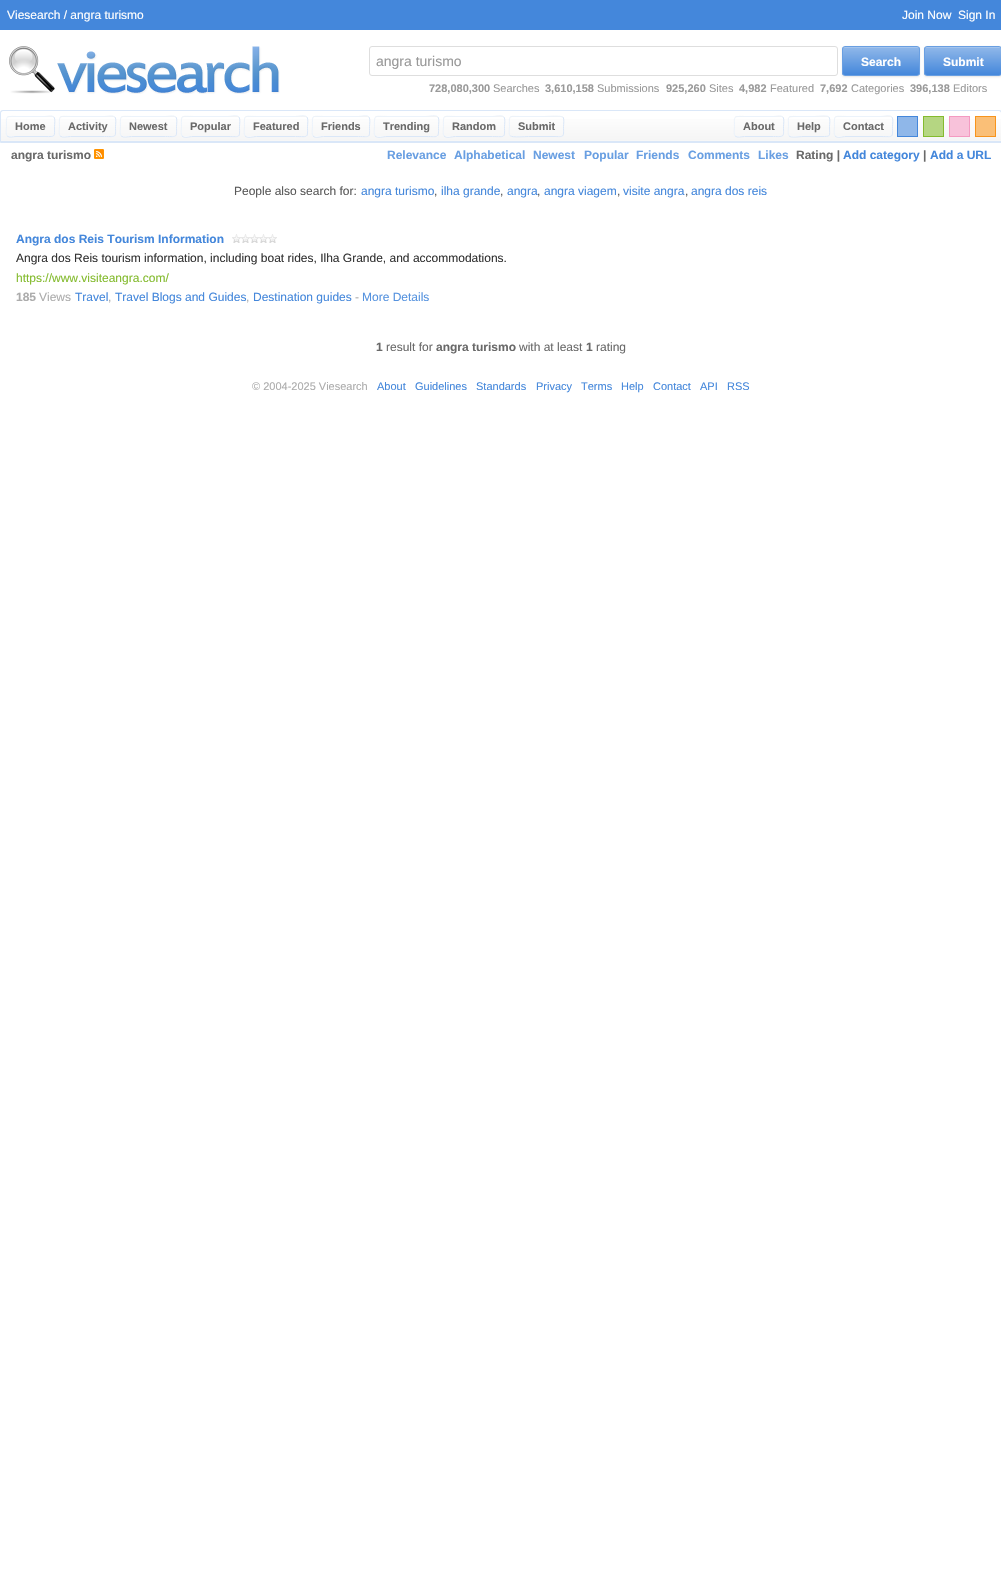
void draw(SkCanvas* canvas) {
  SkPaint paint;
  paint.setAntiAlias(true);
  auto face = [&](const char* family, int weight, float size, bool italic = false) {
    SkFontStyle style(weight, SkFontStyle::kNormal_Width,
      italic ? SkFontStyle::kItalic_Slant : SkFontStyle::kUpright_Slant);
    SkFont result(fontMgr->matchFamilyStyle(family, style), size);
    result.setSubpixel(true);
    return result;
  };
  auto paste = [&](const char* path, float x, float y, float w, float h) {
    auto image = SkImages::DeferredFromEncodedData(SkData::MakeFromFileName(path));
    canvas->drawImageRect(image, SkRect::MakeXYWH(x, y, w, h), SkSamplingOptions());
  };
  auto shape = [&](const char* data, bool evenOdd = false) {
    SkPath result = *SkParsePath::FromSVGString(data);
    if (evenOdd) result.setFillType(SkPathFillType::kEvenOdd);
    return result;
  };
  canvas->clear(0xffffffff);
  paint.setColor(0xff4487db);
  canvas->drawRect(SkRect::MakeXYWH(0, 0, 1001, 30), paint);
  paste("img/1.png", 9, 46, 271, 48);
  paint.setStroke(true);
  paint.setStrokeWidth(1);
  paint.setColor(0xffdedede);
  canvas->drawRoundRect(SkRect::MakeXYWH(369.5f, 46.5f, 468, 29), 2.5f, 2.5f, paint);
  paint.setStroke(false);
  paint.setColor(0x1a000000);
  paint.setMaskFilter(SkMaskFilter::MakeBlur(kNormal_SkBlurStyle, 1));
  canvas->drawRoundRect(SkRect::MakeXYWH(842, 47, 78, 30), 3, 3, paint);
  paint.setMaskFilter(nullptr);
  canvas->save();
  canvas->clipPath(shape("M845 46H917C918.5 46 920 47.5 920 49V73C920 74.5 918.5 76 917 76H845C843.5 76 842 74.5 842 73V49C842 47.5 843.5 46 845 46Z"), true);
  {
    const SkColor colors[] = {0xffecf3fb, 0xff8fb7e9, 0xff4487db};
    const float stops[] = {0.01f, 0.02f, 1};
    const SkPoint ends[] = {{919, 47}, {919, 75}};
    paint.setShader(SkGradientShader::MakeLinear(ends, colors, stops, 3, SkTileMode::kClamp));
    paint.setAlpha(255);
  }
  canvas->drawRect(SkRect::MakeXYWH(842, 47, 78, 28), paint);
  canvas->restore();
  paint.setStroke(true);
  paint.setShader(nullptr);
  paint.setColor(0xff699fe2);
  canvas->drawRoundRect(SkRect::MakeXYWH(842.5f, 46.5f, 77, 29), 2.5f, 2.5f, paint);
  paint.setStroke(false);
  paint.setColor(0x1a000000);
  paint.setMaskFilter(SkMaskFilter::MakeBlur(kNormal_SkBlurStyle, 1));
  canvas->drawRoundRect(SkRect::MakeXYWH(924, 47, 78, 30), 3, 3, paint);
  paint.setMaskFilter(nullptr);
  canvas->save();
  canvas->clipPath(shape("M927 46H999C1000.5 46 1002 47.5 1002 49V73C1002 74.5 1000.5 76 999 76H927C925.5 76 924 74.5 924 73V49C924 47.5 925.5 46 927 46Z"), true);
  {
    const SkColor colors[] = {0xffecf3fb, 0xff8fb7e9, 0xff4487db};
    const float stops[] = {0.01f, 0.02f, 1};
    const SkPoint ends[] = {{1001, 47}, {1001, 75}};
    paint.setShader(SkGradientShader::MakeLinear(ends, colors, stops, 3, SkTileMode::kClamp));
    paint.setAlpha(255);
  }
  canvas->drawRect(SkRect::MakeXYWH(924, 47, 77, 28), paint);
  canvas->restore();
  paint.setStroke(true);
  paint.setShader(nullptr);
  paint.setColor(0xff699fe2);
  canvas->drawRoundRect(SkRect::MakeXYWH(924.5f, 46.5f, 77, 29), 2.5f, 2.5f, paint);
  paint.setStroke(false);
  paint.setColor(0xffdae7f8);
  canvas->drawRect(SkRect::MakeXYWH(0, 141, 1001, 1), paint);
  {
    const SkColor colors[] = {0xffffffff, 0xffffffff, 0xfff5f5f5, 0xffffffff};
    const float stops[] = {0.01f, 0.02f, 0.98f, 1};
    const SkPoint ends[] = {{1001, 111}, {1001, 141}};
    paint.setShader(SkGradientShader::MakeLinear(ends, colors, stops, 4, SkTileMode::kClamp));
    paint.setAlpha(255);
  }
  canvas->drawRect(SkRect::MakeXYWH(0, 119, 1001, 22), paint);
  paint.setShader(nullptr);
  paint.setColor(0xffdae7f8);
  canvas->drawPath(shape("M3 110H999C1001 110 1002 111 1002 113V141H0V113C0 111 1 110 3 110ZM3 111H999C1000 111 1001 112 1001 113V141H1V113C1 112 2 111 3 111Z", true), paint);
  canvas->save();
  canvas->clipPath(shape("M9 116H52C53.5 116 55 117.5 55 119V134C55 135.5 53.5 137 52 137H9C7.5 137 6 135.5 6 134V119C6 117.5 7.5 116 9 116Z"), true);
  {
    const SkColor colors[] = {0xffffffff, 0xffffffff, 0xfff5f5f5};
    const float stops[] = {0.01f, 0.02f, 1};
    const SkPoint ends[] = {{54, 98}, {54, 117}};
    paint.setShader(SkGradientShader::MakeLinear(ends, colors, stops, 3, SkTileMode::kClamp));
    paint.setAlpha(255);
  }
  canvas->drawRect(SkRect::MakeXYWH(6, 116, 49, 1), paint);
  {
    const SkColor colors[] = {0xffffffff, 0xffffffff, 0xfff5f5f5};
    const float stops[] = {0.01f, 0.02f, 1};
    const SkPoint ends[] = {{54, 136}, {54, 155}};
    paint.setShader(SkGradientShader::MakeLinear(ends, colors, stops, 3, SkTileMode::kClamp));
    paint.setAlpha(255);
  }
  canvas->drawRect(SkRect::MakeXYWH(6, 136, 49, 1), paint);
  canvas->restore();
  paint.setStroke(true);
  paint.setShader(nullptr);
  paint.setColor(0xffdae7f8);
  canvas->drawPath(shape("M54 117C55.5 119 54.5 124.5 54.5 126.5C54.5 137.5 56 136.5 45 136.5H16C13 136.5 9.5 138 7 136"), paint);
  paint.setColor(0xffecf3fb);
  canvas->drawPath(shape("M7 136C5.5 134 6.5 128.5 6.5 126.5C6.5 115.5 5 116.5 16 116.5H45C48 116.5 51.5 115 54 117"), paint);
  canvas->save();
  canvas->clipPath(shape("M62 116H113C114.5 116 116 117.5 116 119V134C116 135.5 114.5 137 113 137H62C60.5 137 59 135.5 59 134V119C59 117.5 60.5 116 62 116Z"), true);
  paint.setStroke(false);
  {
    const SkColor colors[] = {0xffffffff, 0xffffffff, 0xfff5f5f5};
    const float stops[] = {0.01f, 0.02f, 1};
    const SkPoint ends[] = {{115, 98}, {115, 117}};
    paint.setShader(SkGradientShader::MakeLinear(ends, colors, stops, 3, SkTileMode::kClamp));
    paint.setAlpha(255);
  }
  canvas->drawRect(SkRect::MakeXYWH(59, 116, 57, 1), paint);
  {
    const SkColor colors[] = {0xffffffff, 0xffffffff, 0xfff5f5f5};
    const float stops[] = {0.01f, 0.02f, 1};
    const SkPoint ends[] = {{115, 136}, {115, 155}};
    paint.setShader(SkGradientShader::MakeLinear(ends, colors, stops, 3, SkTileMode::kClamp));
    paint.setAlpha(255);
  }
  canvas->drawRect(SkRect::MakeXYWH(59, 136, 57, 1), paint);
  canvas->restore();
  paint.setStroke(true);
  paint.setShader(nullptr);
  paint.setColor(0xffdae7f8);
  canvas->drawPath(shape("M115 117C116.5 119 115.5 124.5 115.5 126.5C115.5 138 117 136.5 104.5 136.5H70.5C67 136.5 62.5 138 60 136"), paint);
  paint.setColor(0xffecf3fb);
  canvas->drawPath(shape("M60 136C58.5 134 59.5 128.5 59.5 126.5C59.5 115 58 116.5 70.5 116.5H104.5C108 116.5 112.5 115 115 117"), paint);
  canvas->save();
  canvas->clipPath(shape("M123 116H174C175.5 116 177 117.5 177 119V134C177 135.5 175.5 137 174 137H123C121.5 137 120 135.5 120 134V119C120 117.5 121.5 116 123 116Z"), true);
  paint.setStroke(false);
  {
    const SkColor colors[] = {0xffffffff, 0xffffffff, 0xfff5f5f5};
    const float stops[] = {0.01f, 0.02f, 1};
    const SkPoint ends[] = {{176, 98}, {176, 117}};
    paint.setShader(SkGradientShader::MakeLinear(ends, colors, stops, 3, SkTileMode::kClamp));
    paint.setAlpha(255);
  }
  canvas->drawRect(SkRect::MakeXYWH(120, 116, 57, 1), paint);
  {
    const SkColor colors[] = {0xffffffff, 0xffffffff, 0xfff5f5f5};
    const float stops[] = {0.01f, 0.02f, 1};
    const SkPoint ends[] = {{176, 136}, {176, 155}};
    paint.setShader(SkGradientShader::MakeLinear(ends, colors, stops, 3, SkTileMode::kClamp));
    paint.setAlpha(255);
  }
  canvas->drawRect(SkRect::MakeXYWH(120, 136, 57, 1), paint);
  canvas->restore();
  paint.setStroke(true);
  paint.setShader(nullptr);
  paint.setColor(0xffdae7f8);
  canvas->drawPath(shape("M176 117C177.5 119 176.5 124.5 176.5 126.5C176.5 138 178 136.5 165.5 136.5H131.5C128 136.5 123.5 138 121 136"), paint);
  paint.setColor(0xffecf3fb);
  canvas->drawPath(shape("M121 136C119.5 134 120.5 128.5 120.5 126.5C120.5 115 119 116.5 131.5 116.5H165.5C169 116.5 173.5 115 176 117"), paint);
  canvas->save();
  canvas->clipPath(shape("M184 116H237C238.5 116 240 117.5 240 119V134C240 135.5 238.5 137 237 137H184C182.5 137 181 135.5 181 134V119C181 117.5 182.5 116 184 116Z"), true);
  paint.setStroke(false);
  {
    const SkColor colors[] = {0xffffffff, 0xffffffff, 0xfff5f5f5};
    const float stops[] = {0.01f, 0.02f, 1};
    const SkPoint ends[] = {{239, 98}, {239, 117}};
    paint.setShader(SkGradientShader::MakeLinear(ends, colors, stops, 3, SkTileMode::kClamp));
    paint.setAlpha(255);
  }
  canvas->drawRect(SkRect::MakeXYWH(181, 116, 59, 1), paint);
  {
    const SkColor colors[] = {0xffffffff, 0xffffffff, 0xfff5f5f5};
    const float stops[] = {0.01f, 0.02f, 1};
    const SkPoint ends[] = {{239, 136}, {239, 155}};
    paint.setShader(SkGradientShader::MakeLinear(ends, colors, stops, 3, SkTileMode::kClamp));
    paint.setAlpha(255);
  }
  canvas->drawRect(SkRect::MakeXYWH(181, 136, 59, 1), paint);
  canvas->restore();
  paint.setStroke(true);
  paint.setShader(nullptr);
  paint.setColor(0xffdae7f8);
  canvas->drawPath(shape("M239 117C240.5 119 239.5 124.5 239.5 126.5C239.5 138.5 241 136.5 228 136.5H193C189 136.5 185 138.5 182 136"), paint);
  paint.setColor(0xffecf3fb);
  canvas->drawPath(shape("M182 136C180.5 134 181.5 128.5 181.5 126.5C181.5 114.5 180 116.5 193 116.5H228C232 116.5 236 114.5 239 117"), paint);
  canvas->save();
  canvas->clipPath(shape("M247 116H305C306.5 116 308 117.5 308 119V134C308 135.5 306.5 137 305 137H247C245.5 137 244 135.5 244 134V119C244 117.5 245.5 116 247 116Z"), true);
  paint.setStroke(false);
  {
    const SkColor colors[] = {0xffffffff, 0xffffffff, 0xfff5f5f5};
    const float stops[] = {0.01f, 0.02f, 1};
    const SkPoint ends[] = {{307, 98}, {307, 117}};
    paint.setShader(SkGradientShader::MakeLinear(ends, colors, stops, 3, SkTileMode::kClamp));
    paint.setAlpha(255);
  }
  canvas->drawRect(SkRect::MakeXYWH(244, 116, 64, 1), paint);
  {
    const SkColor colors[] = {0xffffffff, 0xffffffff, 0xfff5f5f5};
    const float stops[] = {0.01f, 0.02f, 1};
    const SkPoint ends[] = {{307, 136}, {307, 155}};
    paint.setShader(SkGradientShader::MakeLinear(ends, colors, stops, 3, SkTileMode::kClamp));
    paint.setAlpha(255);
  }
  canvas->drawRect(SkRect::MakeXYWH(244, 136, 64, 1), paint);
  canvas->restore();
  paint.setStroke(true);
  paint.setShader(nullptr);
  paint.setColor(0xffdae7f8);
  canvas->drawPath(shape("M307 117C308.5 119 307.5 124.5 307.5 126.5C307.5 138.5 309 136.5 295.5 136.5H256.5C253 136.5 248 138.5 245 136"), paint);
  paint.setColor(0xffecf3fb);
  canvas->drawPath(shape("M245 136C243.5 134 244.5 128.5 244.5 126.5C244.5 114.5 243 116.5 256.5 116.5H295.5C299 116.5 304 114.5 307 117"), paint);
  canvas->save();
  canvas->clipPath(shape("M315 116H367C368.5 116 370 117.5 370 119V134C370 135.5 368.5 137 367 137H315C313.5 137 312 135.5 312 134V119C312 117.5 313.5 116 315 116Z"), true);
  paint.setStroke(false);
  {
    const SkColor colors[] = {0xffffffff, 0xffffffff, 0xfff5f5f5};
    const float stops[] = {0.01f, 0.02f, 1};
    const SkPoint ends[] = {{369, 98}, {369, 117}};
    paint.setShader(SkGradientShader::MakeLinear(ends, colors, stops, 3, SkTileMode::kClamp));
    paint.setAlpha(255);
  }
  canvas->drawRect(SkRect::MakeXYWH(312, 116, 58, 1), paint);
  {
    const SkColor colors[] = {0xffffffff, 0xffffffff, 0xfff5f5f5};
    const float stops[] = {0.01f, 0.02f, 1};
    const SkPoint ends[] = {{369, 136}, {369, 155}};
    paint.setShader(SkGradientShader::MakeLinear(ends, colors, stops, 3, SkTileMode::kClamp));
    paint.setAlpha(255);
  }
  canvas->drawRect(SkRect::MakeXYWH(312, 136, 58, 1), paint);
  canvas->restore();
  paint.setStroke(true);
  paint.setShader(nullptr);
  paint.setColor(0xffdae7f8);
  canvas->drawPath(shape("M369 117C370.5 119 369.5 124.5 369.5 126.5C369.5 138.5 371 136.5 358.5 136.5H323.5C320 136.5 315.5 138.5 313 136"), paint);
  paint.setColor(0xffecf3fb);
  canvas->drawPath(shape("M313 136C311.5 134 312.5 128.5 312.5 126.5C312.5 114.5 311 116.5 323.5 116.5H358.5C362 116.5 366.5 114.5 369 117"), paint);
  canvas->save();
  canvas->clipPath(shape("M377 116H436C437.5 116 439 117.5 439 119V134C439 135.5 437.5 137 436 137H377C375.5 137 374 135.5 374 134V119C374 117.5 375.5 116 377 116Z"), true);
  paint.setStroke(false);
  {
    const SkColor colors[] = {0xffffffff, 0xffffffff, 0xfff5f5f5};
    const float stops[] = {0.01f, 0.02f, 1};
    const SkPoint ends[] = {{438, 98}, {438, 117}};
    paint.setShader(SkGradientShader::MakeLinear(ends, colors, stops, 3, SkTileMode::kClamp));
    paint.setAlpha(255);
  }
  canvas->drawRect(SkRect::MakeXYWH(374, 116, 65, 1), paint);
  {
    const SkColor colors[] = {0xffffffff, 0xffffffff, 0xfff5f5f5};
    const float stops[] = {0.01f, 0.02f, 1};
    const SkPoint ends[] = {{438, 136}, {438, 155}};
    paint.setShader(SkGradientShader::MakeLinear(ends, colors, stops, 3, SkTileMode::kClamp));
    paint.setAlpha(255);
  }
  canvas->drawRect(SkRect::MakeXYWH(374, 136, 65, 1), paint);
  canvas->restore();
  paint.setStroke(true);
  paint.setShader(nullptr);
  paint.setColor(0xffdae7f8);
  canvas->drawPath(shape("M438 117C439.5 119 438.5 124.5 438.5 126.5C438.5 138.5 439.5 136.5 426 136.5H387C383 136.5 378 138.5 375 136"), paint);
  paint.setColor(0xffecf3fb);
  canvas->drawPath(shape("M375 136C373.5 134 374.5 128.5 374.5 126.5C374.5 114.5 373.5 116.5 387 116.5H426C430 116.5 435 114.5 438 117"), paint);
  canvas->save();
  canvas->clipPath(shape("M446 116H502C503.5 116 505 117.5 505 119V134C505 135.5 503.5 137 502 137H446C444.5 137 443 135.5 443 134V119C443 117.5 444.5 116 446 116Z"), true);
  paint.setStroke(false);
  {
    const SkColor colors[] = {0xffffffff, 0xffffffff, 0xfff5f5f5};
    const float stops[] = {0.01f, 0.02f, 1};
    const SkPoint ends[] = {{504, 98}, {504, 117}};
    paint.setShader(SkGradientShader::MakeLinear(ends, colors, stops, 3, SkTileMode::kClamp));
    paint.setAlpha(255);
  }
  canvas->drawRect(SkRect::MakeXYWH(443, 116, 62, 1), paint);
  {
    const SkColor colors[] = {0xffffffff, 0xffffffff, 0xfff5f5f5};
    const float stops[] = {0.01f, 0.02f, 1};
    const SkPoint ends[] = {{504, 136}, {504, 155}};
    paint.setShader(SkGradientShader::MakeLinear(ends, colors, stops, 3, SkTileMode::kClamp));
    paint.setAlpha(255);
  }
  canvas->drawRect(SkRect::MakeXYWH(443, 136, 62, 1), paint);
  canvas->restore();
  paint.setStroke(true);
  paint.setShader(nullptr);
  paint.setColor(0xffdae7f8);
  canvas->drawPath(shape("M504 117C505.5 119 504.5 124.5 504.5 126.5C504.5 138.5 506 136.5 492.5 136.5H455.5C451.5 136.5 447 138.5 444 136"), paint);
  paint.setColor(0xffecf3fb);
  canvas->drawPath(shape("M444 136C442.5 134 443.5 128.5 443.5 126.5C443.5 114.5 442 116.5 455.5 116.5H492.5C496.5 116.5 501 114.5 504 117"), paint);
  canvas->save();
  canvas->clipPath(shape("M512 116H561C562.5 116 564 117.5 564 119V134C564 135.5 562.5 137 561 137H512C510.5 137 509 135.5 509 134V119C509 117.5 510.5 116 512 116Z"), true);
  paint.setStroke(false);
  {
    const SkColor colors[] = {0xffffffff, 0xffffffff, 0xfff5f5f5};
    const float stops[] = {0.01f, 0.02f, 1};
    const SkPoint ends[] = {{563, 98}, {563, 117}};
    paint.setShader(SkGradientShader::MakeLinear(ends, colors, stops, 3, SkTileMode::kClamp));
    paint.setAlpha(255);
  }
  canvas->drawRect(SkRect::MakeXYWH(509, 116, 55, 1), paint);
  {
    const SkColor colors[] = {0xffffffff, 0xffffffff, 0xfff5f5f5};
    const float stops[] = {0.01f, 0.02f, 1};
    const SkPoint ends[] = {{563, 136}, {563, 155}};
    paint.setShader(SkGradientShader::MakeLinear(ends, colors, stops, 3, SkTileMode::kClamp));
    paint.setAlpha(255);
  }
  canvas->drawRect(SkRect::MakeXYWH(509, 136, 55, 1), paint);
  canvas->restore();
  paint.setStroke(true);
  paint.setShader(nullptr);
  paint.setColor(0xffdae7f8);
  canvas->drawPath(shape("M563 117C564.5 119 563.5 124.5 563.5 126.5C563.5 138 565 136.5 553 136.5H528.5C525.5 136.5 512.5 137.5 510.5 136H510"), paint);
  paint.setColor(0xffecf3fb);
  canvas->drawPath(shape("M510 136C508.5 134 509.5 128.5 509.5 126.5C509.5 115 508 116.5 520 116.5H544.5C547.5 116.5 560.5 115.5 562.5 117H563"), paint);
  canvas->save();
  canvas->clipPath(shape("M737 116H781C782.5 116 784 117.5 784 119V134C784 135.5 782.5 137 781 137H737C735.5 137 734 135.5 734 134V119C734 117.5 735.5 116 737 116Z"), true);
  paint.setStroke(false);
  {
    const SkColor colors[] = {0xffffffff, 0xffffffff, 0xfff5f5f5};
    const float stops[] = {0.01f, 0.02f, 1};
    const SkPoint ends[] = {{783, 98}, {783, 117}};
    paint.setShader(SkGradientShader::MakeLinear(ends, colors, stops, 3, SkTileMode::kClamp));
    paint.setAlpha(255);
  }
  canvas->drawRect(SkRect::MakeXYWH(734, 116, 50, 1), paint);
  {
    const SkColor colors[] = {0xffffffff, 0xffffffff, 0xfff5f5f5};
    const float stops[] = {0.01f, 0.02f, 1};
    const SkPoint ends[] = {{783, 136}, {783, 155}};
    paint.setShader(SkGradientShader::MakeLinear(ends, colors, stops, 3, SkTileMode::kClamp));
    paint.setAlpha(255);
  }
  canvas->drawRect(SkRect::MakeXYWH(734, 136, 50, 1), paint);
  canvas->restore();
  paint.setStroke(true);
  paint.setShader(nullptr);
  paint.setColor(0xffdae7f8);
  canvas->drawPath(shape("M783 117C784.5 119 783.5 124.5 783.5 126.5C783.5 137.5 785 136.5 773.5 136.5H744.5C741 136.5 737.5 138 735 136"), paint);
  paint.setColor(0xffecf3fb);
  canvas->drawPath(shape("M735 136C733.5 134 734.5 128.5 734.5 126.5C734.5 115.5 733 116.5 744.5 116.5H773.5C777 116.5 780.5 115 783 117"), paint);
  canvas->save();
  canvas->clipPath(shape("M791 116H827C828.5 116 830 117.5 830 119V134C830 135.5 828.5 137 827 137H791C789.5 137 788 135.5 788 134V119C788 117.5 789.5 116 791 116Z"), true);
  paint.setStroke(false);
  {
    const SkColor colors[] = {0xffffffff, 0xffffffff, 0xfff5f5f5};
    const float stops[] = {0.01f, 0.02f, 1};
    const SkPoint ends[] = {{829, 98}, {829, 117}};
    paint.setShader(SkGradientShader::MakeLinear(ends, colors, stops, 3, SkTileMode::kClamp));
    paint.setAlpha(255);
  }
  canvas->drawRect(SkRect::MakeXYWH(788, 116, 42, 1), paint);
  {
    const SkColor colors[] = {0xffffffff, 0xffffffff, 0xfff5f5f5};
    const float stops[] = {0.01f, 0.02f, 1};
    const SkPoint ends[] = {{829, 136}, {829, 155}};
    paint.setShader(SkGradientShader::MakeLinear(ends, colors, stops, 3, SkTileMode::kClamp));
    paint.setAlpha(255);
  }
  canvas->drawRect(SkRect::MakeXYWH(788, 136, 42, 1), paint);
  canvas->restore();
  paint.setStroke(true);
  paint.setShader(nullptr);
  paint.setColor(0xffdae7f8);
  canvas->drawPath(shape("M829 117C830.5 119 829.5 124.5 829.5 126.5C829.5 137 831.5 136.5 821 136.5H803C800.5 136.5 791 138 789 136"), paint);
  paint.setColor(0xffecf3fb);
  canvas->drawPath(shape("M789 136C787.5 134 788.5 128.5 788.5 126.5C788.5 116 786.5 116.5 797 116.5H815C817.5 116.5 827 115 829 117"), paint);
  canvas->save();
  canvas->clipPath(shape("M837 116H890C891.5 116 893 117.5 893 119V134C893 135.5 891.5 137 890 137H837C835.5 137 834 135.5 834 134V119C834 117.5 835.5 116 837 116Z"), true);
  paint.setStroke(false);
  {
    const SkColor colors[] = {0xffffffff, 0xffffffff, 0xfff5f5f5};
    const float stops[] = {0.01f, 0.02f, 1};
    const SkPoint ends[] = {{892, 98}, {892, 117}};
    paint.setShader(SkGradientShader::MakeLinear(ends, colors, stops, 3, SkTileMode::kClamp));
    paint.setAlpha(255);
  }
  canvas->drawRect(SkRect::MakeXYWH(834, 116, 59, 1), paint);
  {
    const SkColor colors[] = {0xffffffff, 0xffffffff, 0xfff5f5f5};
    const float stops[] = {0.01f, 0.02f, 1};
    const SkPoint ends[] = {{892, 136}, {892, 155}};
    paint.setShader(SkGradientShader::MakeLinear(ends, colors, stops, 3, SkTileMode::kClamp));
    paint.setAlpha(255);
  }
  canvas->drawRect(SkRect::MakeXYWH(834, 136, 59, 1), paint);
  canvas->restore();
  paint.setStroke(true);
  paint.setShader(nullptr);
  paint.setColor(0xffdae7f8);
  canvas->drawPath(shape("M892 117C893.5 119 892.5 124.5 892.5 126.5C892.5 138.5 894 136.5 881 136.5H846C842 136.5 838 138.5 835 136"), paint);
  paint.setColor(0xffecf3fb);
  canvas->drawPath(shape("M835 136C833.5 134 834.5 128.5 834.5 126.5C834.5 114.5 833 116.5 846 116.5H881C885 116.5 889 114.5 892 117"), paint);
  paint.setStroke(false);
  paint.setColor(0xff8fb7e9);
  canvas->drawRect(SkRect::MakeXYWH(897.5f, 116.5f, 20, 20), paint);
  paint.setStroke(true);
  paint.setColor(0xff4487db);
  canvas->drawRect(SkRect::MakeXYWH(897.5f, 116.5f, 20, 20), paint);
  paint.setStroke(false);
  paint.setColor(0xffb5d682);
  canvas->drawRect(SkRect::MakeXYWH(923.5f, 116.5f, 20, 20), paint);
  paint.setStroke(true);
  paint.setColor(0xff84bb2e);
  canvas->drawRect(SkRect::MakeXYWH(923.5f, 116.5f, 20, 20), paint);
  paint.setStroke(false);
  paint.setColor(0xfff8c2da);
  canvas->drawRect(SkRect::MakeXYWH(949.5f, 116.5f, 20, 20), paint);
  paint.setStroke(true);
  paint.setColor(0xfff49ac1);
  canvas->drawRect(SkRect::MakeXYWH(949.5f, 116.5f, 20, 20), paint);
  paint.setStroke(false);
  paint.setColor(0xfffabf77);
  canvas->drawRect(SkRect::MakeXYWH(975.5f, 116.5f, 20, 20), paint);
  paint.setStroke(true);
  paint.setColor(0xfff7941d);
  canvas->drawRect(SkRect::MakeXYWH(975.5f, 116.5f, 20, 20), paint);
  paint.setStroke(false);
  paint.setColor(0xffdae7f8);
  canvas->drawRect(SkRect::MakeXYWH(1, 142, 1000, 1), paint);
  canvas->drawCircle(0.5f, 142.5f, 0.5f, paint);
  paste("img/2.png", 94, 149, 10, 10);
  paste("img/3.png", 232, 234, 45, 9);
  auto f0 = face("Liberation Sans", 400, 12);
  paint.setColor(0xffffffff);
  {
    const struct { const char* s; float x, y; } items[] = {
      {"Viesearch / angra turismo", 7, 19},
      {"Join Now", 902, 19},
      {"Sign In", 958, 19},
    };
    for (auto [s, x, y] : items) {
      canvas->drawString(s, x, y, f0, paint);
    }
  }
  auto f1 = face("Liberation Sans", 400, 14);
  paint.setColor(0xff999999);
  canvas->drawString("angra turismo", 376, 66, f1, paint);
  auto f2 = face("Liberation Sans", 700, 12);
  paint.setColor(0xffffffff);
  canvas->drawString("Search", 861, 66, f2, paint);
  canvas->drawString("Submit", 943, 66, f2, paint);
  auto f3 = face("Liberation Sans", 700, 11);
  paint.setColor(0xff999999);
  canvas->drawString("728,080,300", 429, 92, f3, paint);
  auto f4 = face("Liberation Sans", 400, 11);
  canvas->drawString("Searches", 493, 92, f4, paint);
  canvas->drawString("3,610,158", 545, 92, f3, paint);
  canvas->drawString("Submissions", 597, 92, f4, paint);
  canvas->drawString("925,260", 666, 92, f3, paint);
  canvas->drawString("Sites", 709, 92, f4, paint);
  canvas->drawString("4,982", 739, 92, f3, paint);
  canvas->drawString("Featured", 770, 92, f4, paint);
  canvas->drawString("7,692", 820, 92, f3, paint);
  canvas->drawString("Categories", 851, 92, f4, paint);
  canvas->drawString("396,138", 910, 92, f3, paint);
  canvas->drawString("Editors", 953, 92, f4, paint);
  paint.setColor(0xff696969);
  {
    const struct { const char* s; float x, y; } items[] = {
      {"Home", 15, 130},
      {"Activity", 68, 130},
      {"Newest", 129, 130},
      {"Popular", 190, 130},
      {"Featured", 253, 130},
      {"Friends", 321, 130},
      {"Trending", 383, 130},
      {"Random", 452, 130},
      {"Submit", 518, 130},
      {"About", 743, 130},
      {"Help", 797, 130},
      {"Contact", 843, 130},
    };
    for (auto [s, x, y] : items) {
      canvas->drawString(s, x, y, f3, paint);
    }
  }
  canvas->drawString("angra turismo", 11, 159, f2, paint);
  paint.setColor(0xff699fe2);
  {
    const struct { const char* s; float x, y; } items[] = {
      {"Relevance", 387, 159},
      {"Alphabetical", 454, 159},
      {"Newest", 533, 159},
      {"Popular", 584, 159},
      {"Friends", 636, 159},
      {"Comments", 688, 159},
      {"Likes", 758, 159},
    };
    for (auto [s, x, y] : items) {
      canvas->drawString(s, x, y, f2, paint);
    }
  }
  paint.setColor(0xff696969);
  canvas->drawString("Rating |", 796, 159, f2, paint);
  paint.setColor(0xff4487db);
  canvas->drawString("Add category", 843, 159, f2, paint);
  paint.setColor(0xff696969);
  canvas->drawString("|", 923, 159, f2, paint);
  paint.setColor(0xff4487db);
  canvas->drawString("Add a URL", 930, 159, f2, paint);
  paint.setColor(0xff595959);
  canvas->drawString("People also search for:", 234, 195, f0, paint);
  paint.setColor(0xff4487db);
  canvas->drawString("angra turismo", 361, 195, f0, paint);
  paint.setColor(0xff595959);
  canvas->drawString(",", 434, 195, f0, paint);
  paint.setColor(0xff4487db);
  canvas->drawString("ilha grande", 441, 195, f0, paint);
  paint.setColor(0xff595959);
  canvas->drawString(",", 500, 195, f0, paint);
  paint.setColor(0xff4487db);
  canvas->drawString("angra", 507, 195, f0, paint);
  paint.setColor(0xff595959);
  canvas->drawString(",", 537, 195, f0, paint);
  paint.setColor(0xff4487db);
  canvas->drawString("angra viagem", 544, 195, f0, paint);
  paint.setColor(0xff595959);
  canvas->drawString(",", 617, 195, f0, paint);
  paint.setColor(0xff4487db);
  canvas->drawString("visite angra", 623, 195, f0, paint);
  paint.setColor(0xff595959);
  canvas->drawString(",", 685, 195, f0, paint);
  paint.setColor(0xff4487db);
  canvas->drawString("angra dos reis", 691, 195, f0, paint);
  canvas->drawString("Angra dos Reis Tourism Information", 16, 243, f2, paint);
  paint.setColor(0xff333333);
  canvas->drawString("Angra dos Reis tourism information, including boat rides, Ilha Grande, and accommodations.", 16, 262, f0, paint);
  paint.setColor(0xff84bb2e);
  canvas->drawString("https://www.visiteangra.com/", 16, 282, f0, paint);
  paint.setColor(0xffacacac);
  canvas->drawString("185", 16, 301, f2, paint);
  canvas->drawString("Views", 39, 301, f0, paint);
  paint.setColor(0xff4487db);
  {
    const struct { const char* s; float x, y; } items[] = {
      {"Travel", 75, 301},
      {"Travel Blogs and Guides", 115, 301},
      {"Destination guides", 253, 301},
    };
    for (auto [s, x, y] : items) {
      canvas->drawString(s, x, y, f0, paint);
    }
  }
  paint.setColor(0xffacacac);
  canvas->drawString("-", 355, 301, f0, paint);
  paint.setColor(0xff5693df);
  canvas->drawString("More Details", 362, 301, f0, paint);
  paint.setColor(0xffacacac);
  canvas->drawString(",", 108, 301, f0, paint);
  canvas->drawString(",", 246, 301, f0, paint);
  paint.setColor(0xff696969);
  canvas->drawString("1", 376, 351, f2, paint);
  canvas->drawString("result for", 386, 351, f0, paint);
  canvas->drawString("angra turismo", 436, 351, f2, paint);
  canvas->drawString("with at least", 519, 351, f0, paint);
  canvas->drawString("1", 586, 351, f2, paint);
  canvas->drawString("rating", 596, 351, f0, paint);
  paint.setColor(0xffacacac);
  canvas->drawString("© 2004-2025 Viesearch", 252, 390, f4, paint);
  paint.setColor(0xff4487db);
  {
    const struct { const char* s; float x, y; } items[] = {
      {"About", 377, 390},
      {"Guidelines", 415, 390},
      {"Standards", 476, 390},
      {"Privacy", 536, 390},
      {"Terms", 581, 390},
      {"Help", 621, 390},
      {"Contact", 653, 390},
      {"API", 700, 390},
      {"RSS", 727, 390},
    };
    for (auto [s, x, y] : items) {
      canvas->drawString(s, x, y, f4, paint);
    }
  }
}
